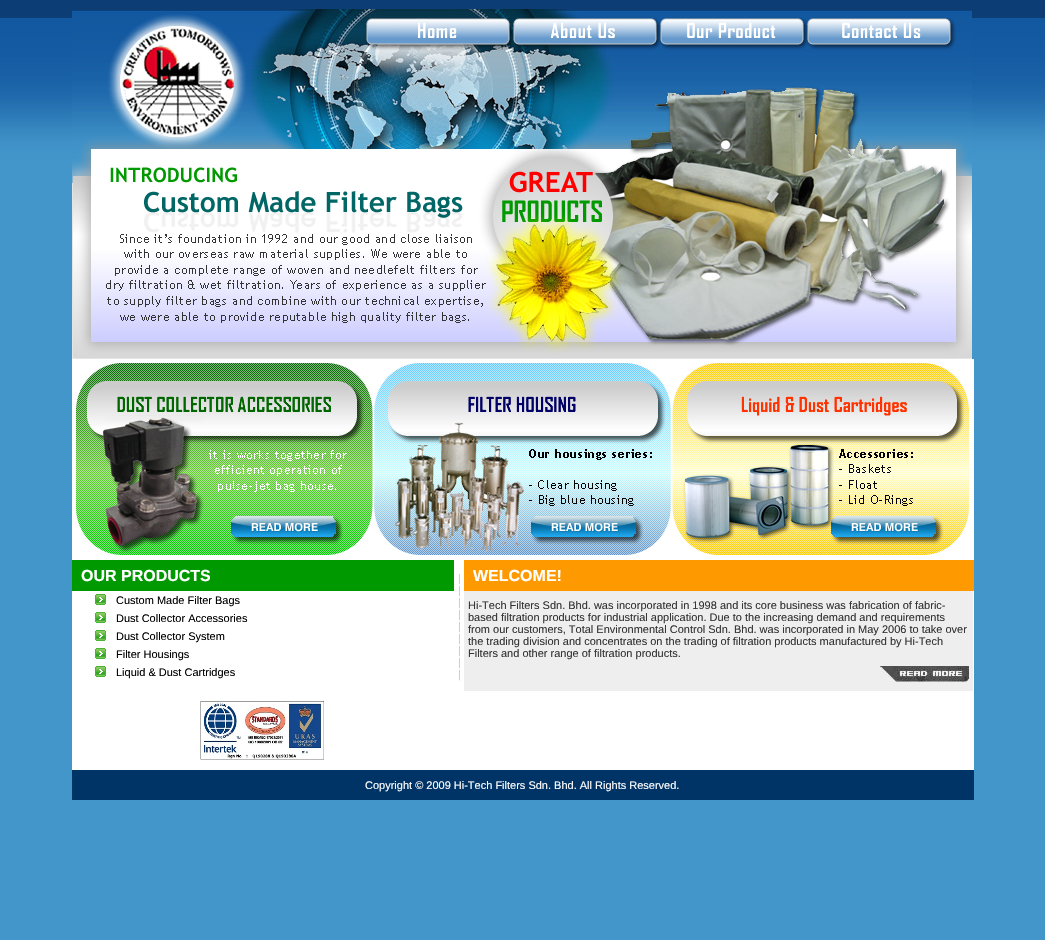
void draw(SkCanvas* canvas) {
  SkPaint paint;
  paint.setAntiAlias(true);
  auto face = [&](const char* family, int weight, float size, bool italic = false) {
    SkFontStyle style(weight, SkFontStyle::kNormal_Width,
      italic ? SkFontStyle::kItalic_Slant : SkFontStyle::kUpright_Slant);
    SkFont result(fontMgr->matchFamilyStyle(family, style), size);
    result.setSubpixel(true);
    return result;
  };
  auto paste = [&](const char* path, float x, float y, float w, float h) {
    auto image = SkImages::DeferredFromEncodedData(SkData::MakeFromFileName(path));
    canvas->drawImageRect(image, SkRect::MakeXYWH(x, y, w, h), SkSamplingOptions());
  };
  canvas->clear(0xffffffff);
  paste("img/1.png", 0, 0, 1045, 940);
  paste("img/2.png", 72, 9, 900, 8);
  paste("img/3.png", 72, 17, 295, 342);
  paste("img/4.png", 367, 17, 143, 30);
  paste("img/5.png", 510, 17, 462, 1);
  paste("img/6.png", 510, 18, 3, 341);
  paste("img/7.png", 513, 18, 146, 29);
  paste("img/8.png", 663, 18, 141, 1);
  paste("img/9.png", 807, 18, 143, 26);
  paste("img/10.png", 950, 18, 22, 341);
  paste("img/11.png", 659, 20, 2, 339);
  paste("img/12.png", 661, 19, 142, 27);
  paste("img/13.png", 803, 19, 4, 340);
  paste("img/14.png", 807, 44, 143, 315);
  paste("img/15.png", 367, 47, 143, 312);
  paste("img/16.png", 513, 47, 146, 312);
  paste("img/17.png", 661, 46, 142, 313);
  paint.setColor(0xffffffff);
  canvas->drawRect(SkRect::MakeXYWH(72, 359, 902, 201), paint);
  paste("img/18.png", 76, 363, 893, 153);
  paste("img/19.png", 76, 516, 155, 39);
  paste("img/20.png", 231, 516, 109, 22);
  paste("img/21.png", 340, 516, 191, 39);
  paste("img/22.png", 531, 516, 109, 22);
  paste("img/23.png", 640, 516, 191, 39);
  paste("img/24.png", 831, 516, 109, 22);
  paste("img/25.png", 940, 516, 29, 36);
  paste("img/26.png", 231, 538, 109, 17);
  paste("img/27.png", 531, 538, 109, 17);
  paste("img/28.png", 831, 538, 109, 17);
  {
    const struct { float x, y, w, h; SkColor color; } items[] = {
      {454, 560, 10, 31, 0xffffffff},
      {72, 560, 382, 31, 0xff009900},
      {72, 591, 902, 179, 0xffffffff},
    };
    for (auto [x, y, w, h, color] : items) {
      paint.setColor(color);
      canvas->drawRect(SkRect::MakeXYWH(x, y, w, h), paint);
    }
  }
  paste("img/29.png", 95, 594, 11, 11);
  paste("img/29.png", 95, 612, 11, 11);
  paste("img/29.png", 95, 630, 11, 11);
  paste("img/29.png", 95, 648, 11, 11);
  paste("img/29.png", 95, 666, 11, 11);
  paint.setColor(0xffff9900);
  canvas->drawRect(SkRect::MakeXYWH(464, 560, 510, 31), paint);
  paint.setColor(0xffeeeeee);
  canvas->drawRect(SkRect::MakeXYWH(464, 591, 509, 100), paint);
  paste("img/30.png", 880, 666, 89, 16);
  paste("img/31.png", 200, 700, 124, 60);
  paint.setColor(0xff003366);
  canvas->drawRect(SkRect::MakeXYWH(72, 770, 902, 30), paint);
  auto f0 = face("Liberation Sans", 700, 16);
  paint.setColor(0xffffffff);
  canvas->drawString("OUR PRODUCTS", 81, 581, f0, paint);
  auto f1 = face("Liberation Sans", 400, 11);
  paint.setColor(0xff000000);
  {
    const struct { const char* s; float x, y; } items[] = {
      {"Custom Made Filter Bags", 116, 604},
      {"Dust Collector Accessories", 116, 622},
      {"Dust Collector System", 116, 640},
      {"Filter Housings", 116, 658},
      {"Liquid & Dust Cartridges", 116, 676},
    };
    for (auto [s, x, y] : items) {
      canvas->drawString(s, x, y, f1, paint);
    }
  }
  paint.setColor(0xffcccccc);
  {
    const struct { const char* s; float x, y; } items[] = {
      {"|", 458, 582},
      {"|", 458, 594},
      {"|", 458, 606},
      {"|", 458, 618},
      {"|", 458, 630},
      {"|", 458, 642},
      {"|", 458, 654},
      {"|", 458, 666},
      {"|", 458, 678},
    };
    for (auto [s, x, y] : items) {
      canvas->drawString(s, x, y, f1, paint);
    }
  }
  paint.setColor(0xffffffff);
  canvas->drawString("WELCOME!", 473, 581, f0, paint);
  paint.setColor(0xff333333);
  {
    const struct { const char* s; float x, y; } items[] = {
      {"Hi-Tech Filters Sdn. Bhd. was incorporated in 1998 and its core business was fabrication of fabric-", 468, 609},
      {"based filtration products for industrial application. Due to the increasing demand and requirements", 468, 621},
      {"from our customers, Total Environmental Control Sdn. Bhd. was incorporated in May 2006 to take over", 468, 633},
      {"the trading division and concentrates on the trading of filtration products manufactured by Hi-Tech", 468, 645},
      {"Filters and other range of filtration products.", 468, 657},
    };
    for (auto [s, x, y] : items) {
      canvas->drawString(s, x, y, f1, paint);
    }
  }
  paint.setColor(0xffffffff);
  canvas->drawString("Copyright © 2009 Hi-Tech Filters Sdn. Bhd. All Rights Reserved.", 365, 789, f1, paint);
}
